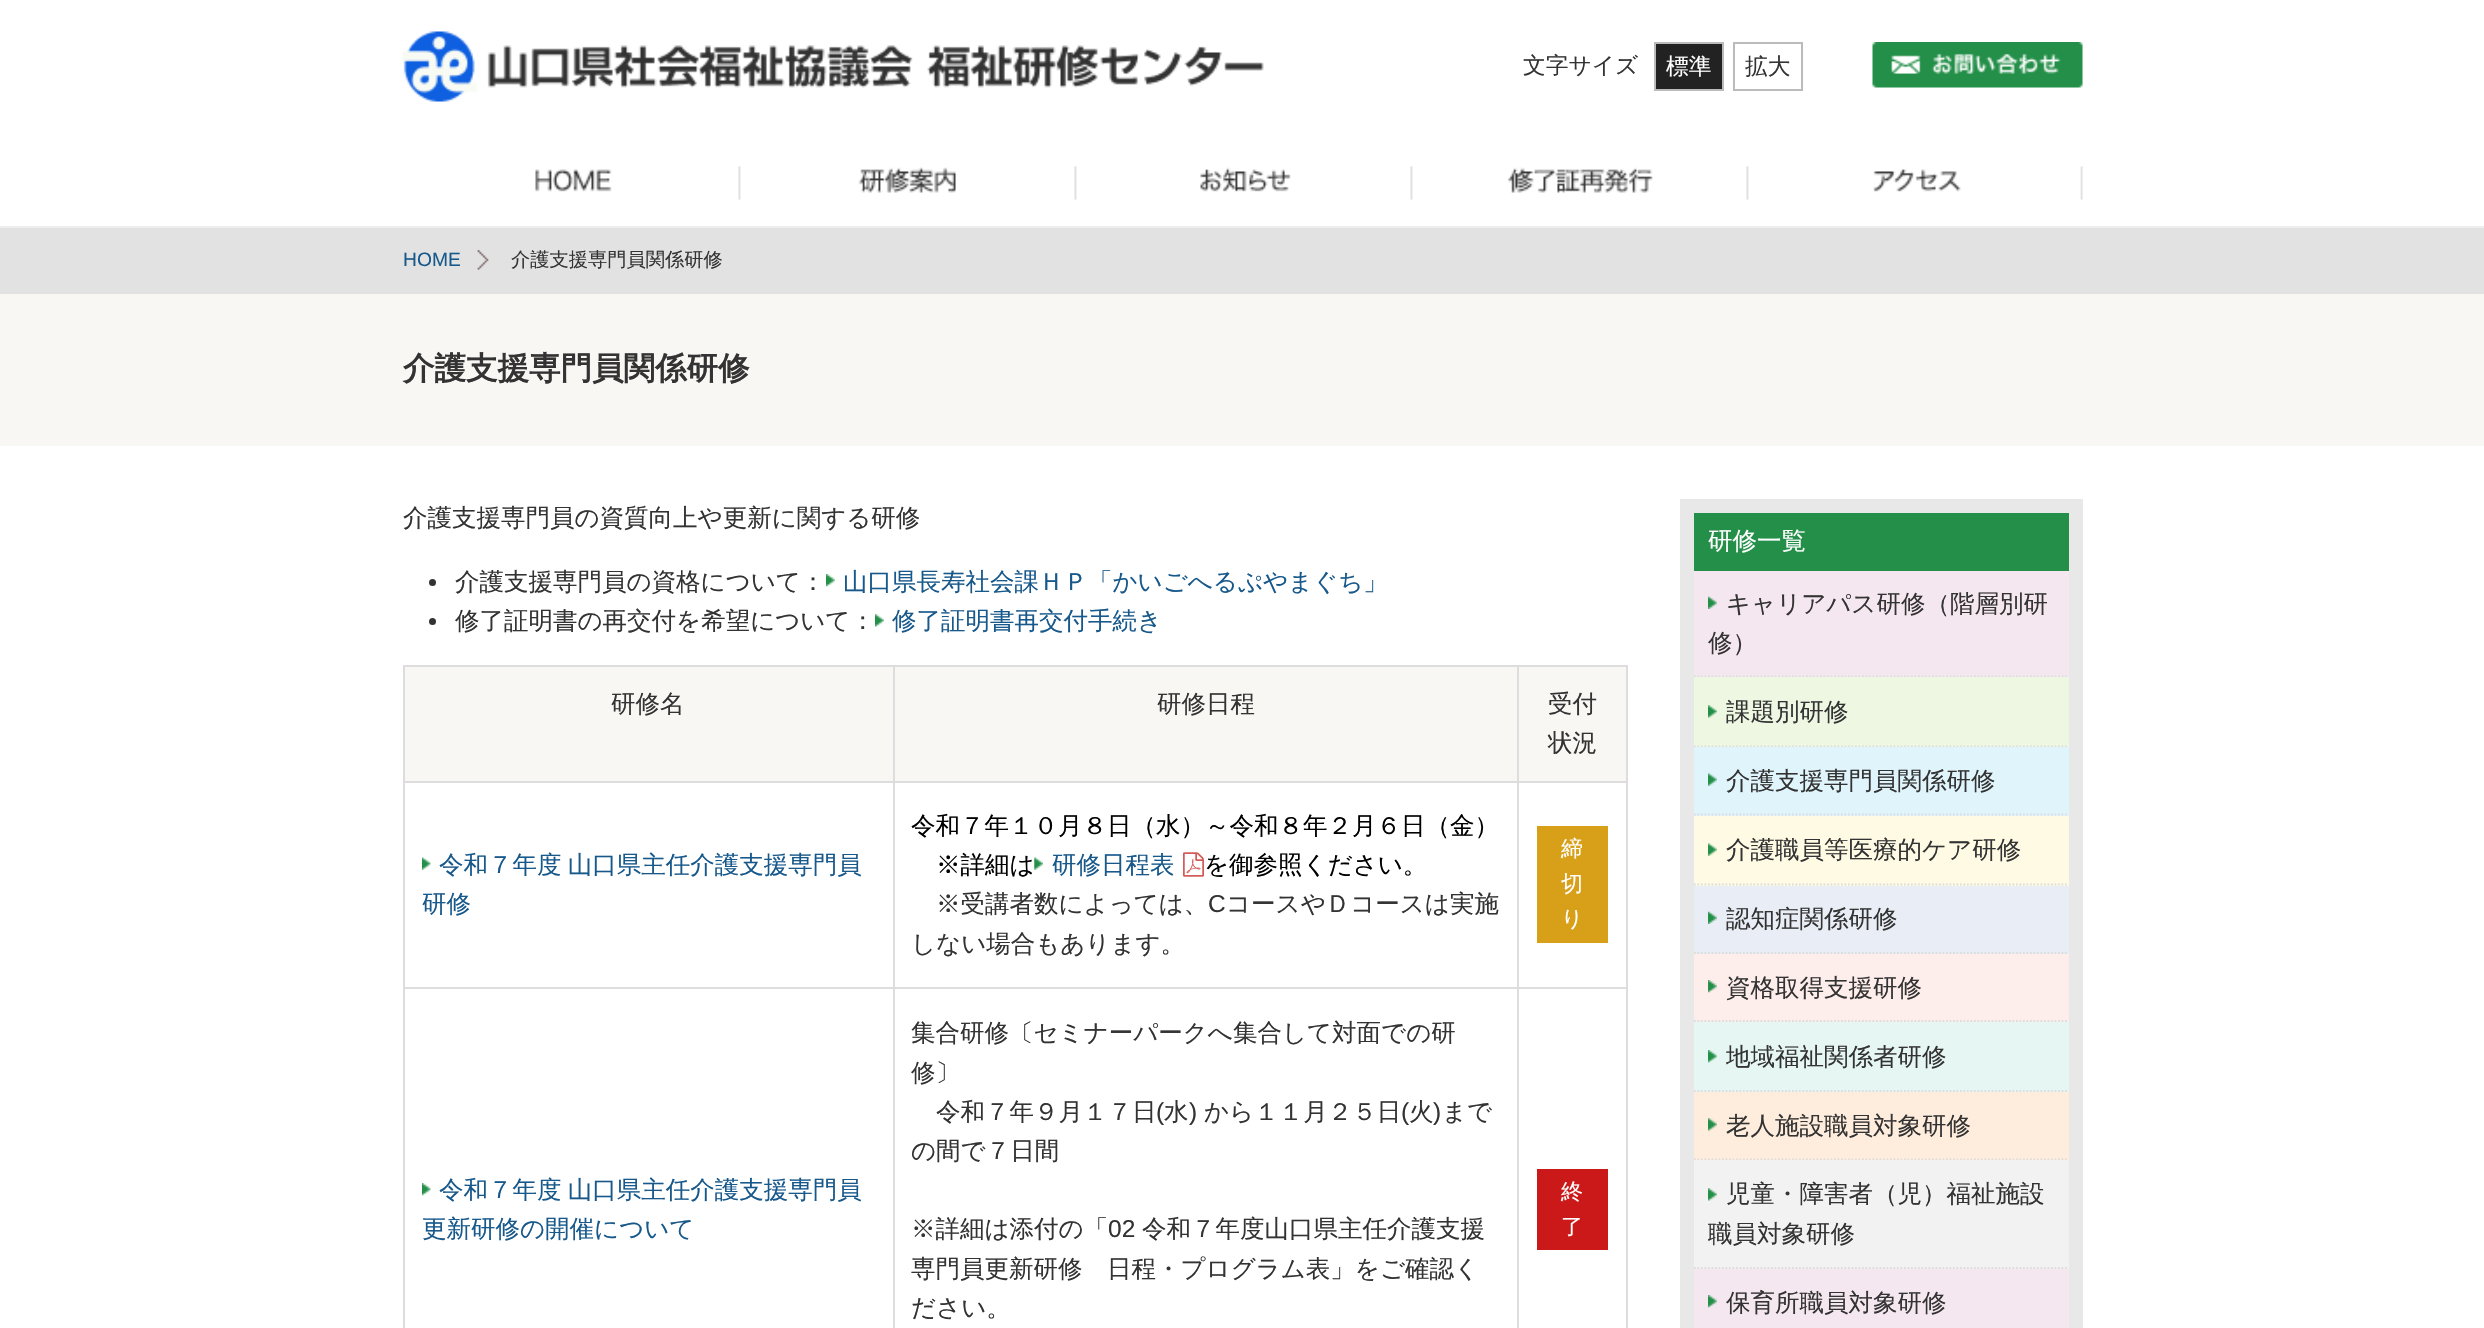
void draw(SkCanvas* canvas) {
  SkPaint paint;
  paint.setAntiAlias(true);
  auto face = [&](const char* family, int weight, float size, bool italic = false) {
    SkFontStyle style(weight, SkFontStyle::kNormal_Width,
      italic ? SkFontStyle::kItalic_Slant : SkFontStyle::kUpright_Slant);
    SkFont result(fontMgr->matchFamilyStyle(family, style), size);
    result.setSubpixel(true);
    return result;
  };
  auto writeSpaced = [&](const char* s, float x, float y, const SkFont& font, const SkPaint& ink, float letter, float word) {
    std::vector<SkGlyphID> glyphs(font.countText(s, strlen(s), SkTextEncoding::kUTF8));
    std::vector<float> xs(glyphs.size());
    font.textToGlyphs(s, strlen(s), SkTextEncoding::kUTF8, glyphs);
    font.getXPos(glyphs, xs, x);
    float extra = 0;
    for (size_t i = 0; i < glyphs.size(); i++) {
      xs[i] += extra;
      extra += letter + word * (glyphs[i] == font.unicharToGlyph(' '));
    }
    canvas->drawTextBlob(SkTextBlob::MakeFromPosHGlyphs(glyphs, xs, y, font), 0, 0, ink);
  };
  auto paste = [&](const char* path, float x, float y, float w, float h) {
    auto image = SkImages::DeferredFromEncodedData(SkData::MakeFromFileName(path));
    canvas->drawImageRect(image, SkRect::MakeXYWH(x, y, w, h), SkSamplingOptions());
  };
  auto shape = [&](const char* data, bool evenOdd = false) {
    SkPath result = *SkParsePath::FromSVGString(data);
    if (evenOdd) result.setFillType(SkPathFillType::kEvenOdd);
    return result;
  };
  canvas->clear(0xffffffff);
  paint.setColor(0xffeeeeee);
  canvas->drawRect(SkRect::MakeXYWH(0, 226, 2484, 2), paint);
  paste("img/1.png", 402, 31, 862, 71);
  paint.setColor(0xff222222);
  canvas->drawRect(SkRect::MakeXYWH(1655, 43, 68, 47), paint);
  paint.setStroke(true);
  paint.setStrokeWidth(2);
  paint.setColor(0xffbbbbbb);
  canvas->drawRect(SkRect::MakeXYWH(1655, 43, 68, 47), paint);
  canvas->drawRect(SkRect::MakeXYWH(1734, 43, 68, 47), paint);
  paste("img/2.png", 1872, 42, 211, 46);
  paste("img/3.png", 535, 169, 77, 23);
  paste("img/4.png", 738, 166, 218, 34);
  paste("img/5.png", 1074, 166, 217, 34);
  paste("img/6.png", 1410, 166, 243, 34);
  paste("img/7.png", 1746, 166, 337, 34);
  paint.setStroke(false);
  paint.setColor(0xffe2e2e2);
  canvas->drawRect(SkRect::MakeXYWH(0, 228, 2484, 66), paint);
  paste("img/8.png", 477, 250, 12, 20);
  paint.setColor(0xfff8f7f4);
  canvas->drawRect(SkRect::MakeXYWH(0, 294, 2484, 152), paint);
  paint.setColor(0xff333333);
  canvas->drawCircle(432.5f, 582.5f, 3.5f, paint);
  paste("img/9.png", 826, 574, 9, 13);
  canvas->drawCircle(432.5f, 621.5f, 3.5f, paint);
  paste("img/10.png", 875, 614, 9, 13);
  {
    const struct { float x, y, w, h; SkColor color; } items[] = {
      {403, 665, 1225, 2, 0xffdddddd},
      {403, 781, 1225, 2, 0xffdddddd},
      {405, 667, 488, 114, 0xfff8f7f4},
      {895, 667, 622, 114, 0xfff8f7f4},
      {1519, 667, 107, 114, 0xfff8f7f4},
      {403, 987, 1225, 2, 0xffdddddd},
    };
    for (auto [x, y, w, h, color] : items) {
      paint.setColor(color);
      canvas->drawRect(SkRect::MakeXYWH(x, y, w, h), paint);
    }
  }
  paste("img/11.png", 422, 857, 9, 13);
  paste("img/12.png", 1034, 857, 9, 13);
  paste("img/13.png", 1183, 852, 21, 25);
  paint.setColor(0xffd8a019);
  canvas->drawRect(SkRect::MakeXYWH(1537, 826, 71, 117), paint);
  paint.setColor(0xffdddddd);
  canvas->drawRect(SkRect::MakeXYWH(403, 665, 2, 663), paint);
  paste("img/14.png", 422, 1183, 9, 13);
  {
    const struct { float x, y, w, h; SkColor color; } items[] = {
      {893, 665, 2, 663, 0xffdddddd},
      {1626, 665, 2, 663, 0xffdddddd},
      {1517, 665, 2, 663, 0xffdddddd},
      {1537, 1169, 71, 81, 0xffcb1919},
      {1680, 499, 403, 829, 0xffe8e8e8},
      {1694, 513, 375, 58, 0xff238f48},
      {1694, 571, 375, 106, 0xfff5e7f0},
    };
    for (auto [x, y, w, h, color] : items) {
      paint.setColor(color);
      canvas->drawRect(SkRect::MakeXYWH(x, y, w, h), paint);
    }
  }
  paint.setStroke(true);
  paint.setStrokeWidth(1.8f);
  paint.setColor(0xffdddddd);
  paint.setPathEffect(SkDashPathEffect::Make({{1.75f, 1.75f}}, 0));
  canvas->drawPath(shape("M1694 676.5H2068.5"), paint);
  paint.setPathEffect(nullptr);
  paste("img/15.png", 1708, 596, 9, 13);
  paint.setStroke(false);
  paint.setColor(0xffeef7e2);
  canvas->drawRect(SkRect::MakeXYWH(1694, 677, 375, 70), paint);
  paint.setStroke(true);
  paint.setColor(0xffdddddd);
  paint.setPathEffect(SkDashPathEffect::Make({{1.75f, 1.75f}}, 0));
  canvas->drawPath(shape("M1694 746.5H2068.5"), paint);
  paint.setPathEffect(nullptr);
  paste("img/16.png", 1708, 705, 9, 13);
  paint.setStroke(false);
  paint.setColor(0xffe0f4fc);
  canvas->drawRect(SkRect::MakeXYWH(1694, 747, 375, 69), paint);
  paint.setStroke(true);
  paint.setColor(0xffdddddd);
  paint.setPathEffect(SkDashPathEffect::Make({{1.75f, 1.75f}}, 0));
  canvas->drawPath(shape("M1694 814.5H2068.5"), paint);
  paint.setPathEffect(nullptr);
  paste("img/17.png", 1708, 773, 9, 13);
  paint.setStroke(false);
  paint.setColor(0xfffefae4);
  canvas->drawRect(SkRect::MakeXYWH(1694, 816, 375, 70), paint);
  paint.setStroke(true);
  paint.setColor(0xffdddddd);
  paint.setPathEffect(SkDashPathEffect::Make({{1.75f, 1.75f}}, 0));
  canvas->drawPath(shape("M1694 884.5H2068.5"), paint);
  paint.setPathEffect(nullptr);
  paste("img/18.png", 1708, 843, 9, 13);
  paint.setStroke(false);
  paint.setColor(0xffe9edf5);
  canvas->drawRect(SkRect::MakeXYWH(1694, 886, 375, 68), paint);
  paint.setStroke(true);
  paint.setColor(0xffdddddd);
  paint.setPathEffect(SkDashPathEffect::Make({{1.75f, 1.75f}}, 0));
  canvas->drawPath(shape("M1694 953H2068.5"), paint);
  paint.setPathEffect(nullptr);
  paste("img/19.png", 1708, 911, 9, 13);
  paint.setStroke(false);
  paint.setColor(0xfffdedeb);
  canvas->drawRect(SkRect::MakeXYWH(1694, 954, 375, 68), paint);
  paint.setStroke(true);
  paint.setColor(0xffdddddd);
  paint.setPathEffect(SkDashPathEffect::Make({{1.75f, 1.75f}}, 0));
  canvas->drawPath(shape("M1694 1021H2068.5"), paint);
  paint.setPathEffect(nullptr);
  paste("img/20.png", 1708, 980, 9, 13);
  paint.setStroke(false);
  paint.setColor(0xffe6f6f2);
  canvas->drawRect(SkRect::MakeXYWH(1694, 1022, 375, 70), paint);
  paint.setStroke(true);
  paint.setColor(0xffdddddd);
  paint.setPathEffect(SkDashPathEffect::Make({{1.75f, 1.75f}}, 0));
  canvas->drawPath(shape("M1694 1091H2068.5"), paint);
  paint.setPathEffect(nullptr);
  paste("img/21.png", 1708, 1050, 9, 13);
  paint.setStroke(false);
  paint.setColor(0xfffeecdc);
  canvas->drawRect(SkRect::MakeXYWH(1694, 1092, 375, 68), paint);
  paint.setStroke(true);
  paint.setColor(0xffdddddd);
  paint.setPathEffect(SkDashPathEffect::Make({{1.75f, 1.75f}}, 0));
  canvas->drawPath(shape("M1694 1159.5H2068.5"), paint);
  paint.setPathEffect(nullptr);
  paste("img/22.png", 1708, 1118, 9, 13);
  paint.setStroke(false);
  paint.setColor(0xfff2f2f2);
  canvas->drawRect(SkRect::MakeXYWH(1694, 1160, 375, 109), paint);
  paint.setStroke(true);
  paint.setColor(0xffdddddd);
  paint.setPathEffect(SkDashPathEffect::Make({{1.75f, 1.75f}}, 0));
  canvas->drawPath(shape("M1694 1268H2068.5"), paint);
  paint.setPathEffect(nullptr);
  paste("img/23.png", 1708, 1188, 9, 13);
  paint.setStroke(false);
  paint.setColor(0xfff5e7f0);
  canvas->drawRect(SkRect::MakeXYWH(1694, 1269, 375, 59), paint);
  paste("img/24.png", 1708, 1295, 9, 13);
  auto f0 = face("WenQuanYi Zen Hei", 500, 22.75f);
  paint.setColor(0xff333333);
  canvas->drawString("文字サイズ", 1523, 73, f0, paint);
  paint.setColor(0xffffffff);
  canvas->drawString("標準", 1666, 74, f0, paint);
  paint.setColor(0xff333333);
  canvas->drawString("拡大", 1745, 74, f0, paint);
  auto f1 = face("Liberation Sans", 400, 19.25f);
  paint.setColor(0xff18598b);
  canvas->drawString("HOME", 403, 266, f1, paint);
  auto f2 = face("WenQuanYi Zen Hei", 500, 19.25f);
  paint.setColor(0xff333333);
  canvas->drawString("介護支援専門員関係研修", 511, 266, f2, paint);
  auto f3 = face("WenQuanYi Zen Hei", 700, 31.5f);
  canvas->drawString("介護支援専門員関係研修", 403, 379, f3, paint);
  auto f4 = face("WenQuanYi Zen Hei", 500, 24.5f);
  canvas->drawString("介護支援専門員の資質向上や更新に関する研修", 403, 526, f4, paint);
  canvas->drawString("介護支援専門員の資格について：", 455, 590, f4, paint);
  paint.setColor(0xff18598b);
  canvas->drawString("山口県長寿社会課ＨＰ「かいごへるぷやまぐち」", 843, 590, f4, paint);
  paint.setColor(0xff333333);
  canvas->drawString("修了証明書の再交付を希望について：", 455, 629, f4, paint);
  paint.setColor(0xff18598b);
  canvas->drawString("修了証明書再交付手続き", 892, 629, f4, paint);
  paint.setColor(0xff333333);
  {
    const struct { const char* s; float x, y; } items[] = {
      {"研修名", 611, 712},
      {"研修日程", 1157, 712},
      {"受付", 1548, 712},
      {"状況", 1548, 751},
    };
    for (auto [s, x, y] : items) {
      canvas->drawString(s, x, y, f4, paint);
    }
  }
  paint.setColor(0xff18598b);
  writeSpaced("令和７年度 山口県主任介護支援専門員", 439, 873, f4, paint, 0, -1);
  canvas->drawString("研修", 422, 912, f4, paint);
  paint.setColor(0xff000000);
  canvas->drawString("令和７年１０月８日（水）～令和８年２月６日（金）", 911, 834, f4, paint);
  canvas->drawString("※詳細は", 936, 873, f4, paint);
  paint.setColor(0xff18598b);
  canvas->drawString("研修日程表", 1052, 873, f4, paint);
  paint.setColor(0xff000000);
  canvas->drawString("を御参照ください。", 1204, 873, f4, paint);
  paint.setColor(0xff333333);
  canvas->drawString("※受講者数によっては、", 936, 912, f4, paint);
  auto f5 = face("Liberation Sans", 400, 24.5f);
  canvas->drawString("C", 1208, 912, f5, paint);
  canvas->drawString("コースやＤコースは実施", 1226, 912, f4, paint);
  canvas->drawString("しない場合もあります。", 911, 952, f4, paint);
  auto f6 = face("WenQuanYi Zen Hei", 500, 22);
  paint.setColor(0xffffffff);
  {
    const struct { const char* s; float x, y; } items[] = {
      {"締", 1561, 856},
      {"切", 1561, 891},
      {"り", 1561, 926},
    };
    for (auto [s, x, y] : items) {
      canvas->drawString(s, x, y, f6, paint);
    }
  }
  paint.setColor(0xff18598b);
  writeSpaced("令和７年度 山口県主任介護支援専門員", 439, 1198, f4, paint, 0, -1);
  canvas->drawString("更新研修の開催について", 422, 1237, f4, paint);
  paint.setColor(0xff333333);
  {
    const struct { const char* s; float x, y; } items[] = {
      {"集合研修〔セミナーパークへ集合して対面での研", 911, 1041},
      {"修〕", 911, 1081},
      {"令和７年９月１７日", 936, 1120},
    };
    for (auto [s, x, y] : items) {
      canvas->drawString(s, x, y, f4, paint);
    }
  }
  canvas->drawString("(", 1156, 1120, f5, paint);
  canvas->drawString("水", 1164, 1120, f4, paint);
  canvas->drawString(")", 1189, 1120, f5, paint);
  canvas->drawString("から１１月２５日", 1204, 1120, f4, paint);
  canvas->drawString("(", 1401, 1120, f5, paint);
  canvas->drawString("火", 1409, 1120, f4, paint);
  canvas->drawString(")", 1433, 1120, f5, paint);
  {
    const struct { const char* s; float x, y; } items[] = {
      {"まで", 1442, 1120},
      {"の間で７日間", 911, 1159},
      {"※詳細は添付の「", 911, 1237},
    };
    for (auto [s, x, y] : items) {
      canvas->drawString(s, x, y, f4, paint);
    }
  }
  canvas->drawString("02", 1108, 1237, f5, paint);
  {
    const struct { const char* s; float x, y; } items[] = {
      {"令和７年度山口県主任介護支援", 1142, 1237},
      {"専門員更新研修　日程・プログラム表」をご確認く", 911, 1277},
      {"ださい。", 911, 1316},
    };
    for (auto [s, x, y] : items) {
      canvas->drawString(s, x, y, f4, paint);
    }
  }
  paint.setColor(0xffffffff);
  canvas->drawString("終", 1561, 1199, f6, paint);
  canvas->drawString("了", 1561, 1234, f6, paint);
  canvas->drawString("研修一覧", 1708, 549, f4, paint);
  paint.setColor(0xff333333);
  {
    const struct { const char* s; float x, y; } items[] = {
      {"キャリアパス研修（階層別研", 1726, 612},
      {"修）", 1708, 651},
      {"課題別研修", 1726, 720},
      {"介護支援専門員関係研修", 1726, 789},
      {"介護職員等医療的ケア研修", 1726, 858},
      {"認知症関係研修", 1726, 927},
      {"資格取得支援研修", 1726, 996},
      {"地域福祉関係者研修", 1726, 1065},
      {"老人施設職員対象研修", 1726, 1134},
      {"児童・障害者（児）福祉施設", 1726, 1202},
      {"職員対象研修", 1708, 1242},
      {"保育所職員対象研修", 1726, 1311},
    };
    for (auto [s, x, y] : items) {
      canvas->drawString(s, x, y, f4, paint);
    }
  }
}
